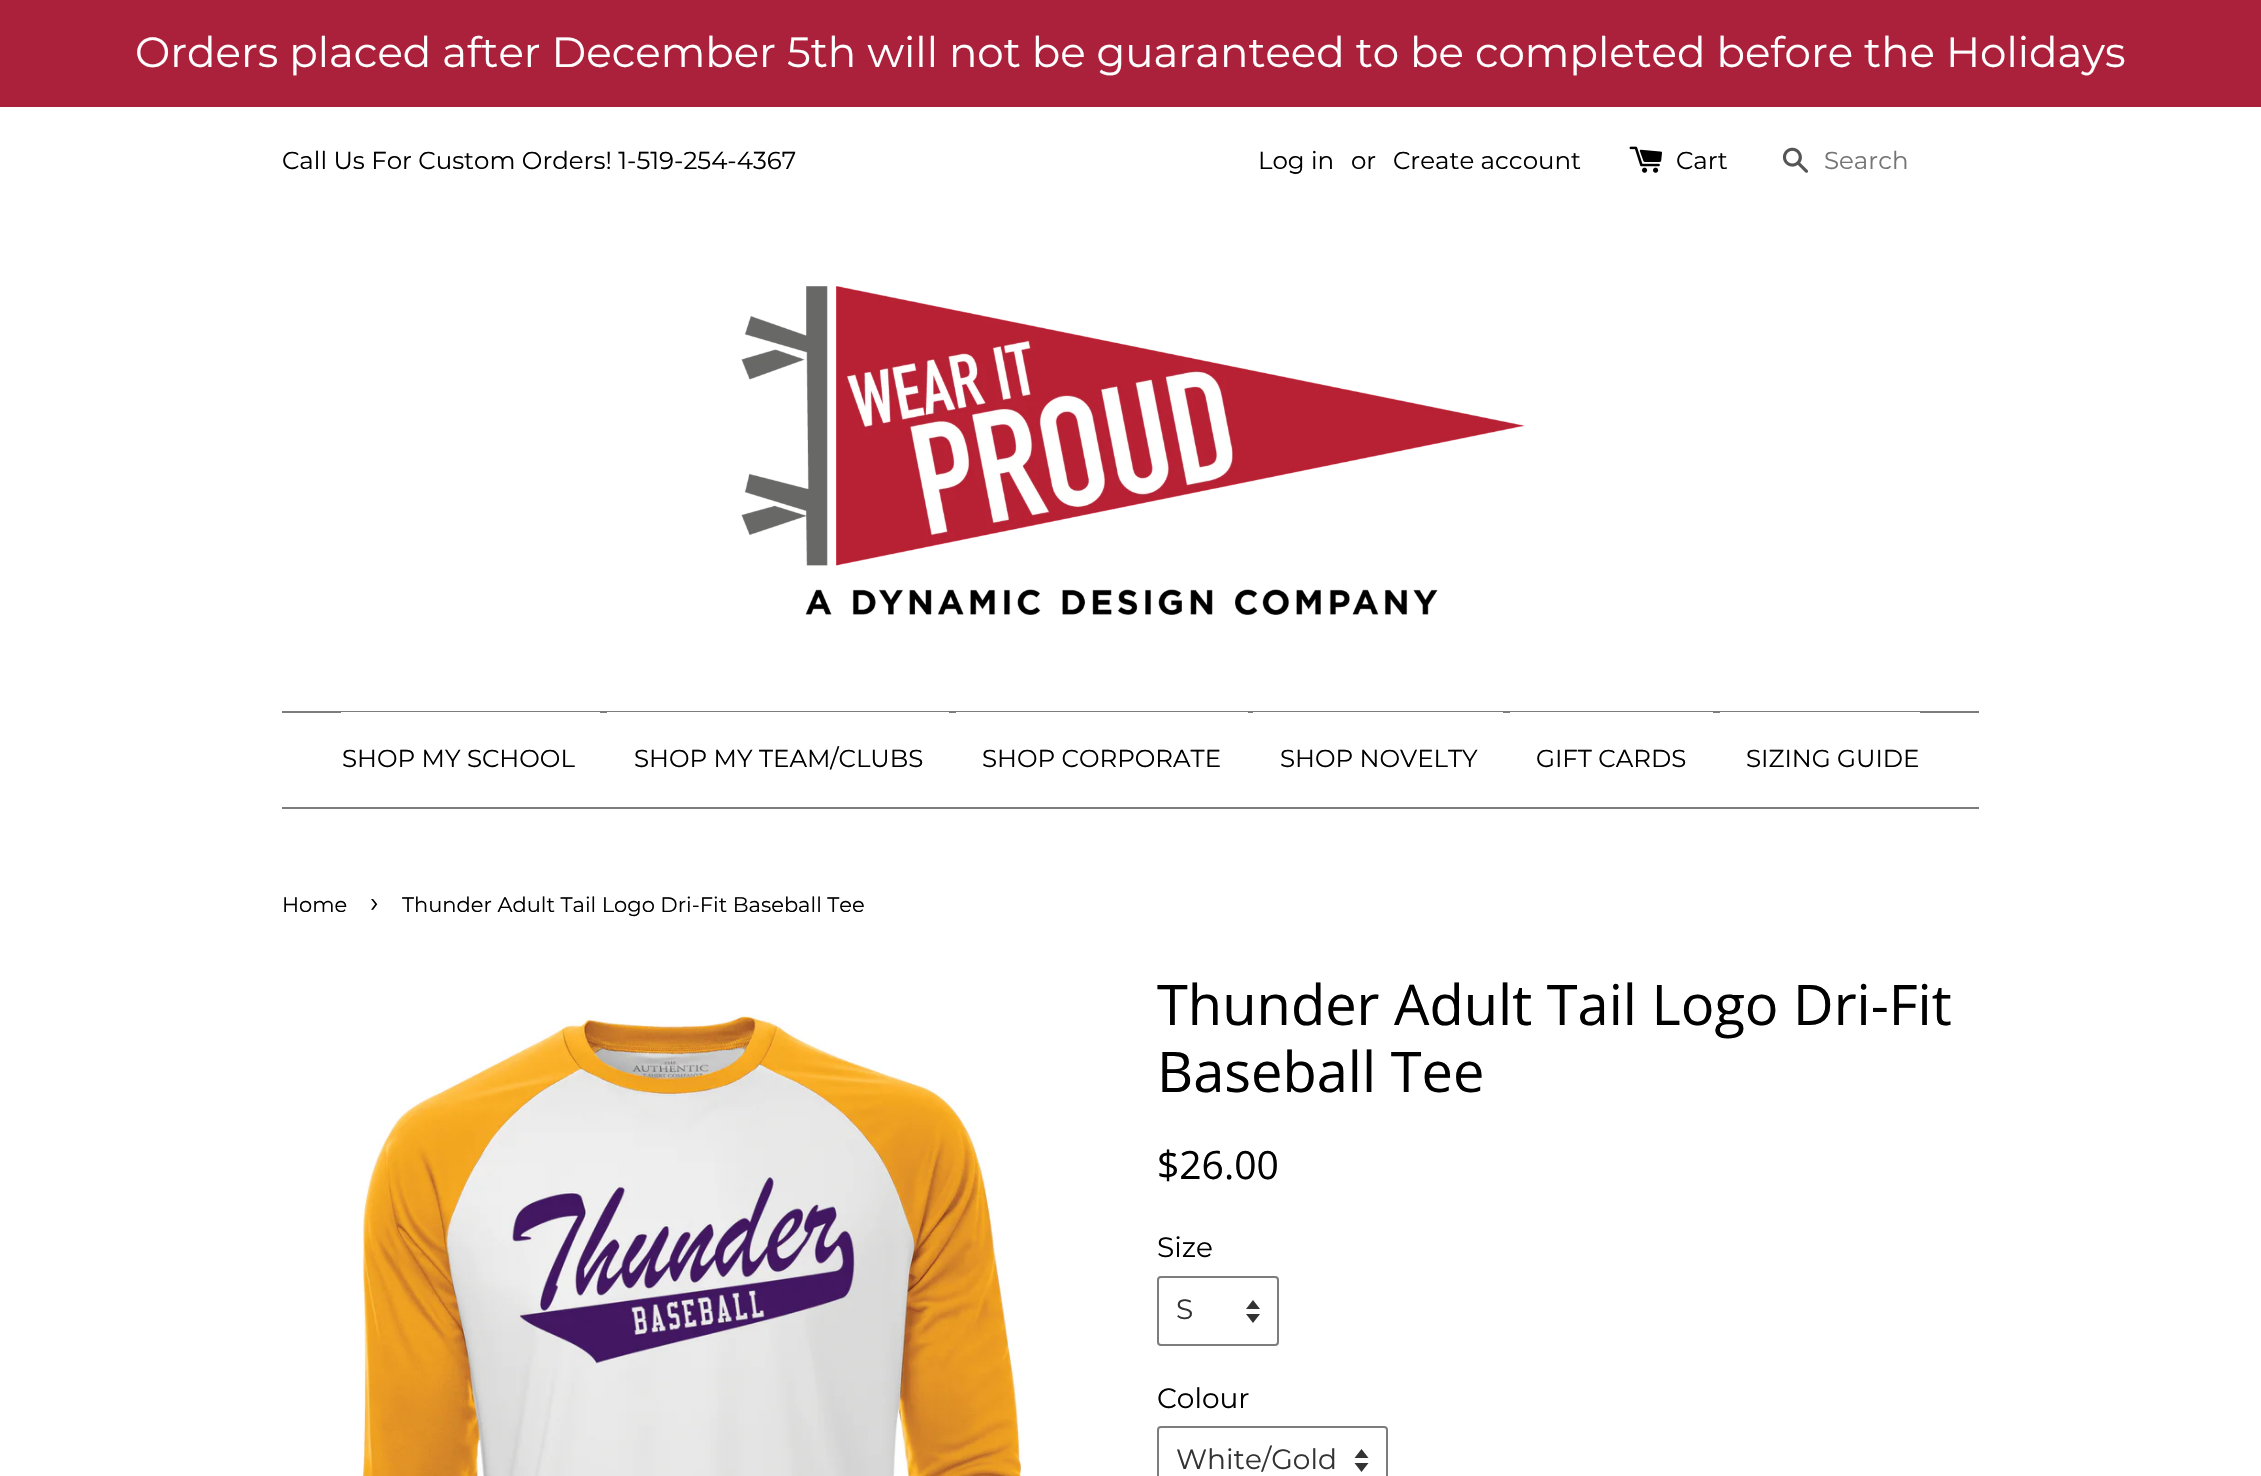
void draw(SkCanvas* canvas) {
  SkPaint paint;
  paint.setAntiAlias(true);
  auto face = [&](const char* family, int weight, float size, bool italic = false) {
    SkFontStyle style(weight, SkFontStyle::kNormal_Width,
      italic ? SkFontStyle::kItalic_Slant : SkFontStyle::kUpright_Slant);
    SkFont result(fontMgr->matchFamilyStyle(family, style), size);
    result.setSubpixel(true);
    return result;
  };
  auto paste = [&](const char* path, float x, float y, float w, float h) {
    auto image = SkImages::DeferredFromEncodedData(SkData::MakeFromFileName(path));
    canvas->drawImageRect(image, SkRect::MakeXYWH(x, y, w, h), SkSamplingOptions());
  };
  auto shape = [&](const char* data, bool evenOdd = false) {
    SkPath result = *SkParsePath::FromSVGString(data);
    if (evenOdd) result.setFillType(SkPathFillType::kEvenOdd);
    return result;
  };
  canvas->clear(0xffffffff);
  paint.setColor(0xffab203b);
  canvas->drawRect(SkRect::MakeXYWH(0, 0, 2261, 107), paint);
  paste("img/1.png", 1629, 146, 33, 27);
  paste("img/2.png", 1782, 147, 27, 26);
  paste("img/3.png", 741, 286, 783, 329);
  {
    const struct { float x, y, w, h; SkColor color; } items[] = {
      {282, 711, 1697, 2, 0xff7d7d7d},
      {282, 807, 1697, 2, 0xff7d7d7d},
      {341, 712, 259, 1, 0xffffffff},
      {607, 712, 342, 1, 0xffffffff},
      {956, 712, 292, 1, 0xffffffff},
      {1253, 712, 250, 1, 0xffffffff},
      {1510, 712, 203, 1, 0xffffffff},
      {1720, 712, 200, 1, 0xffffffff},
    };
    for (auto [x, y, w, h, color] : items) {
      paint.setColor(color);
      canvas->drawRect(SkRect::MakeXYWH(x, y, w, h), paint);
    }
  }
  paste("img/4.png", 361, 1015, 662, 461);
  paint.setColor(0xff333333);
  canvas->drawPath(shape("M1246 1314L1253 1323L1260 1314ZM1253 1300L1246 1309H1260Z"), paint);
  paint.setStroke(true);
  paint.setStrokeWidth(2);
  paint.setColor(0xff7d7d7d);
  canvas->drawRoundRect(SkRect::MakeXYWH(1158, 1277, 120, 68), 3, 3, paint);
  paint.setStroke(false);
  paint.setColor(0xff333333);
  canvas->drawPath(shape("M1354.5 1463L1361.5 1472L1368.5 1463ZM1361.5 1449L1354.5 1458H1368.5Z"), paint);
  paint.setStroke(true);
  paint.setColor(0xff7d7d7d);
  canvas->drawRoundRect(SkRect::MakeXYWH(1158, 1427, 229, 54), 3, 3, paint);
  auto f0 = face("Montserrat", 400, 42);
  paint.setStroke(false);
  paint.setColor(0xffffffff);
  canvas->drawString("Orders placed after December 5th will not be guaranteed to be completed before the Holidays", 135, 67, f0, paint);
  auto f1 = face("Montserrat", 400, 24.5f);
  paint.setColor(0xff000000);
  {
    const struct { const char* s; float x, y; } items[] = {
      {"Call Us For Custom Orders! 1-519-254-4367", 282, 169},
      {"Log in", 1258, 169},
      {"or", 1351, 169},
      {"Create account", 1393, 169},
      {"Cart", 1676, 169},
    };
    for (auto [s, x, y] : items) {
      canvas->drawString(s, x, y, f1, paint);
    }
  }
  paint.setColor(0xff757575);
  canvas->drawString("Search", 1824, 169, f1, paint);
  paint.setColor(0xff000000);
  {
    const struct { const char* s; float x, y; } items[] = {
      {"SHOP MY SCHOOL", 342, 767},
      {"SHOP MY TEAM/CLUBS", 634, 767},
      {"SHOP CORPORATE", 982, 767},
      {"SHOP NOVELTY", 1280, 767},
      {"GIFT CARDS", 1536, 767},
      {"SIZING GUIDE", 1746, 767},
    };
    for (auto [s, x, y] : items) {
      canvas->drawString(s, x, y, f1, paint);
    }
  }
  auto f2 = face("Montserrat", 400, 21);
  canvas->drawString("Home", 282, 912, f2, paint);
  auto f3 = face("Montserrat", 400, 29);
  canvas->drawString("›", 370, 912, f3, paint);
  canvas->drawString("Thunder Adult Tail Logo Dri-Fit Baseball Tee", 402, 912, f2, paint);
  auto f4 = face("Open Sans", 400, 56);
  canvas->drawString("Thunder Adult Tail Logo Dri-Fit", 1157, 1025, f4, paint);
  canvas->drawString("Baseball Tee", 1157, 1092, f4, paint);
  auto f5 = face("Open Sans", 400, 39);
  canvas->drawString("$26.00", 1157, 1179, f5, paint);
  auto f6 = face("Montserrat", 400, 28);
  canvas->drawString("Size", 1157, 1257, f6, paint);
  paint.setColor(0xff333333);
  canvas->drawString("S", 1176, 1319, f6, paint);
  paint.setColor(0xff000000);
  canvas->drawString("Colour", 1157, 1408, f6, paint);
  paint.setColor(0xff333333);
  canvas->drawString("White/Gold", 1176, 1469, f6, paint);
}
